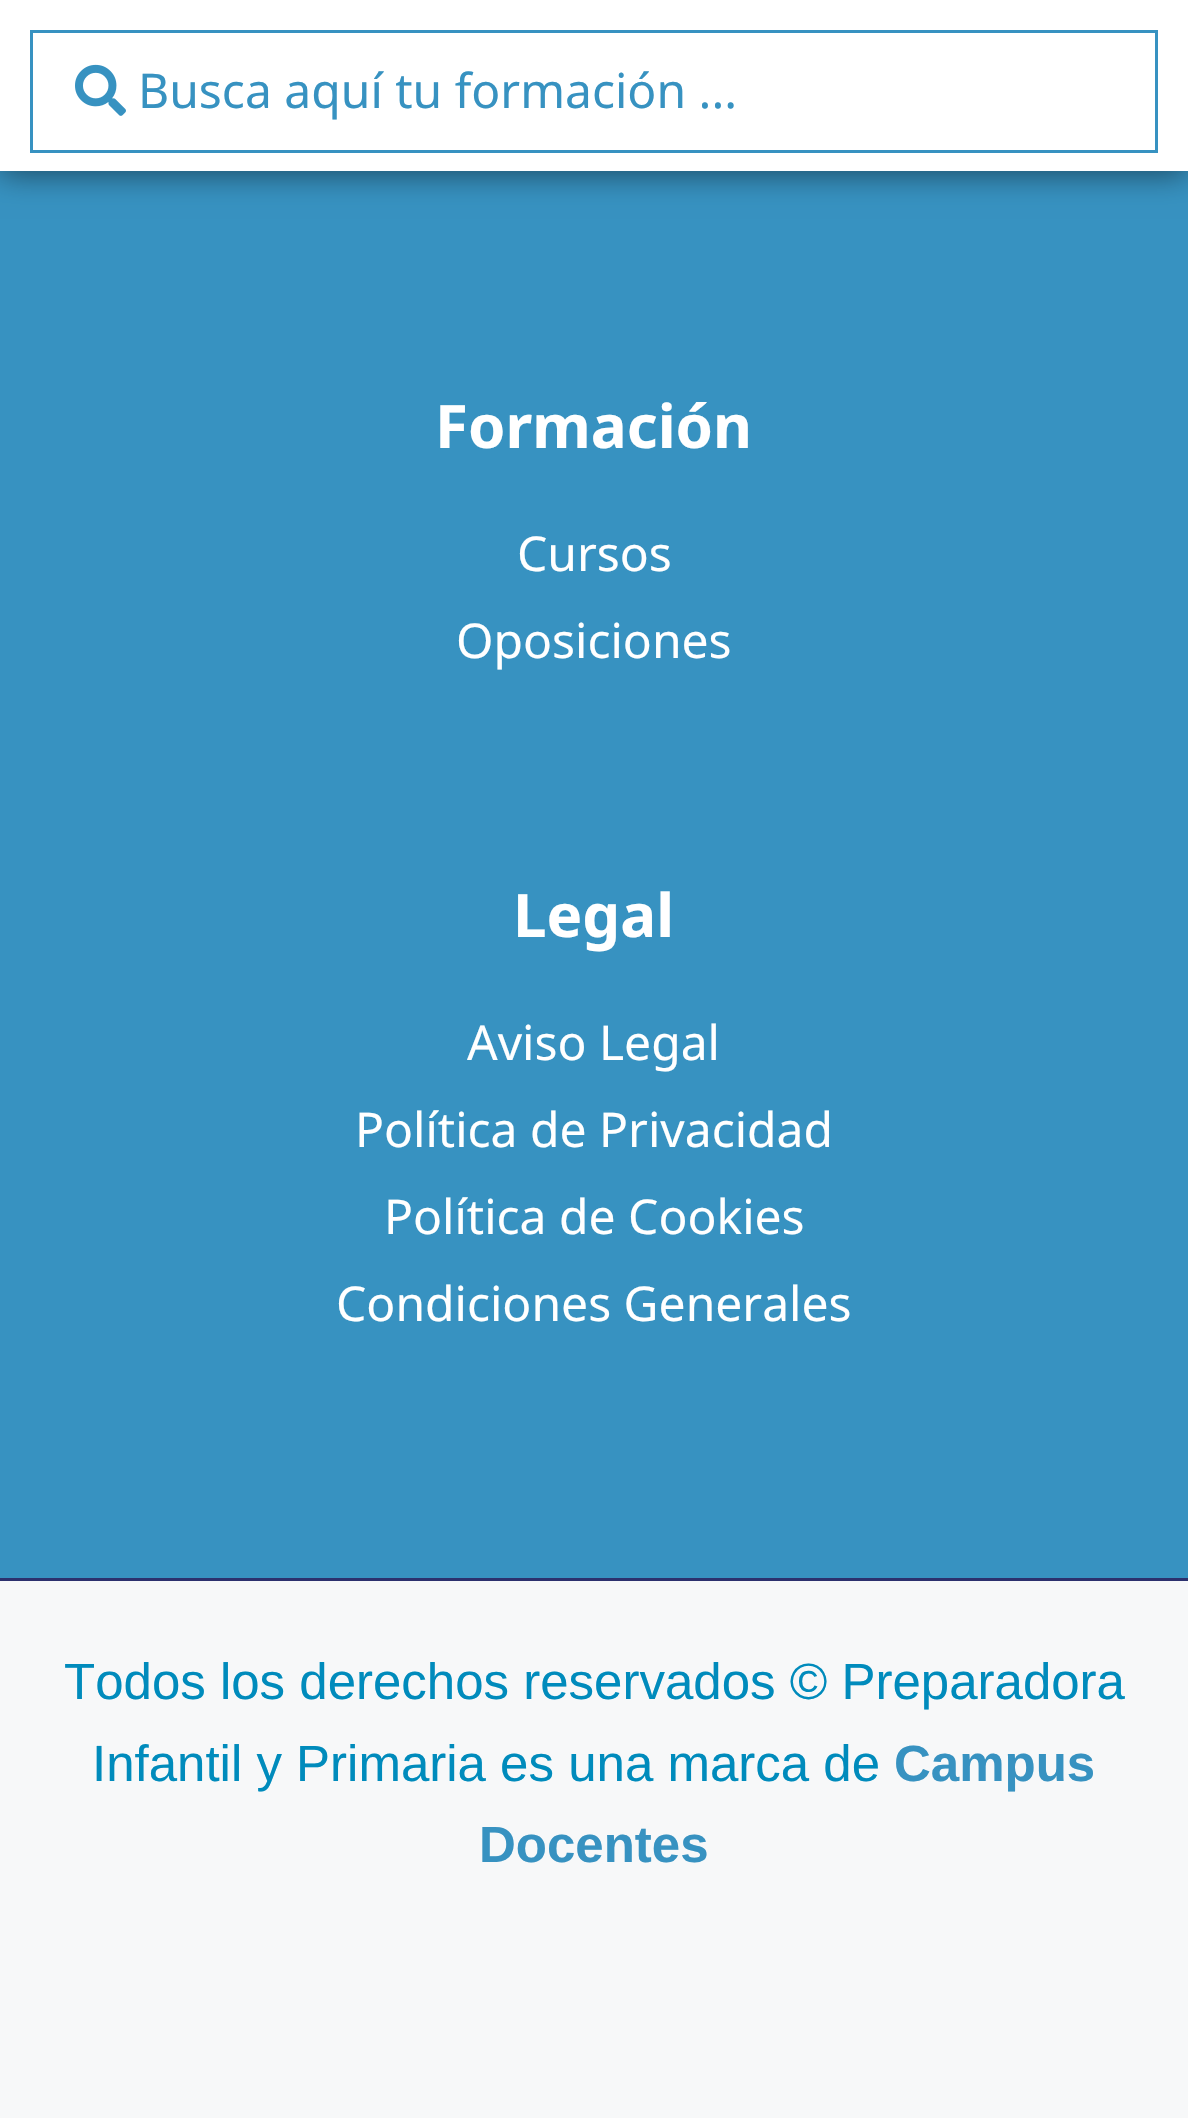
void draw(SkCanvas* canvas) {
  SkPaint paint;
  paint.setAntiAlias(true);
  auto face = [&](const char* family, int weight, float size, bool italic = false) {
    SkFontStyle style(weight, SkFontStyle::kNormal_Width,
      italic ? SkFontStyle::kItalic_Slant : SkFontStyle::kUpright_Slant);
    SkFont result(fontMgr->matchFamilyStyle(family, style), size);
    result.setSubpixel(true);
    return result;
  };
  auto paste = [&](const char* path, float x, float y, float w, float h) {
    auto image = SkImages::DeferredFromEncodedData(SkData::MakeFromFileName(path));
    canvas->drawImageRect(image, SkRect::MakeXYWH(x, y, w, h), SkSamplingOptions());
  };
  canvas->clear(0xfff7f8f9);
  paint.setColor(0xff3792c1);
  canvas->drawRect(SkRect::MakeXYWH(0, 171, 1188, 1407), paint);
  paint.setColor(0x80000000);
  paint.setMaskFilter(SkMaskFilter::MakeBlur(kNormal_SkBlurStyle, 15));
  canvas->drawRect(SkRect::MakeXYWH(0, 3, 1188, 171), paint);
  paint.setMaskFilter(nullptr);
  paint.setColor(0xffffffff);
  canvas->drawRect(SkRect::MakeXYWH(0, 0, 1188, 171), paint);
  paint.setStroke(true);
  paint.setStrokeWidth(3);
  paint.setColor(0xff3792c1);
  canvas->drawRect(SkRect::MakeXYWH(31.5f, 31.5f, 1125, 120), paint);
  paste("img/1.png", 75, 64, 51, 52);
  paint.setStroke(false);
  paint.setColor(0xff2c316e);
  canvas->drawRect(SkRect::MakeXYWH(0, 1578, 1188, 3), paint);
  auto f0 = face("Noto Sans", 400, 48);
  paint.setColor(0xff3792c1);
  canvas->drawString("Busca aquí tu formación ...", 138, 108, f0, paint);
  auto f1 = face("Noto Sans", 700, 60);
  paint.setColor(0xffffffff);
  canvas->drawString("Formación", 435, 448, f1, paint);
  canvas->drawString("Cursos", 517, 571, f0, paint);
  canvas->drawString("Oposiciones", 456, 658, f0, paint);
  canvas->drawString("Legal", 513, 937, f1, paint);
  {
    const struct { const char* s; float x, y; } items[] = {
      {"Aviso Legal", 467, 1060},
      {"Política de Privacidad", 355, 1147},
      {"Política de Cookies", 384, 1234},
      {"Condiciones Generales", 336, 1321},
    };
    for (auto [s, x, y] : items) {
      canvas->drawString(s, x, y, f0, paint);
    }
  }
  auto f2 = face("Liberation Sans", 400, 51);
  paint.setColor(0xff008bbc);
  canvas->drawString("Todos los derechos reservados © Preparadora", 64, 1699, f2, paint);
  canvas->drawString("Infantil y Primaria es una marca de", 92, 1781, f2, paint);
  auto f3 = face("Liberation Sans", 700, 51);
  paint.setColor(0xff3792c1);
  canvas->drawString("Campus", 894, 1781, f3, paint);
  canvas->drawString("Docentes", 479, 1862, f3, paint);
}
